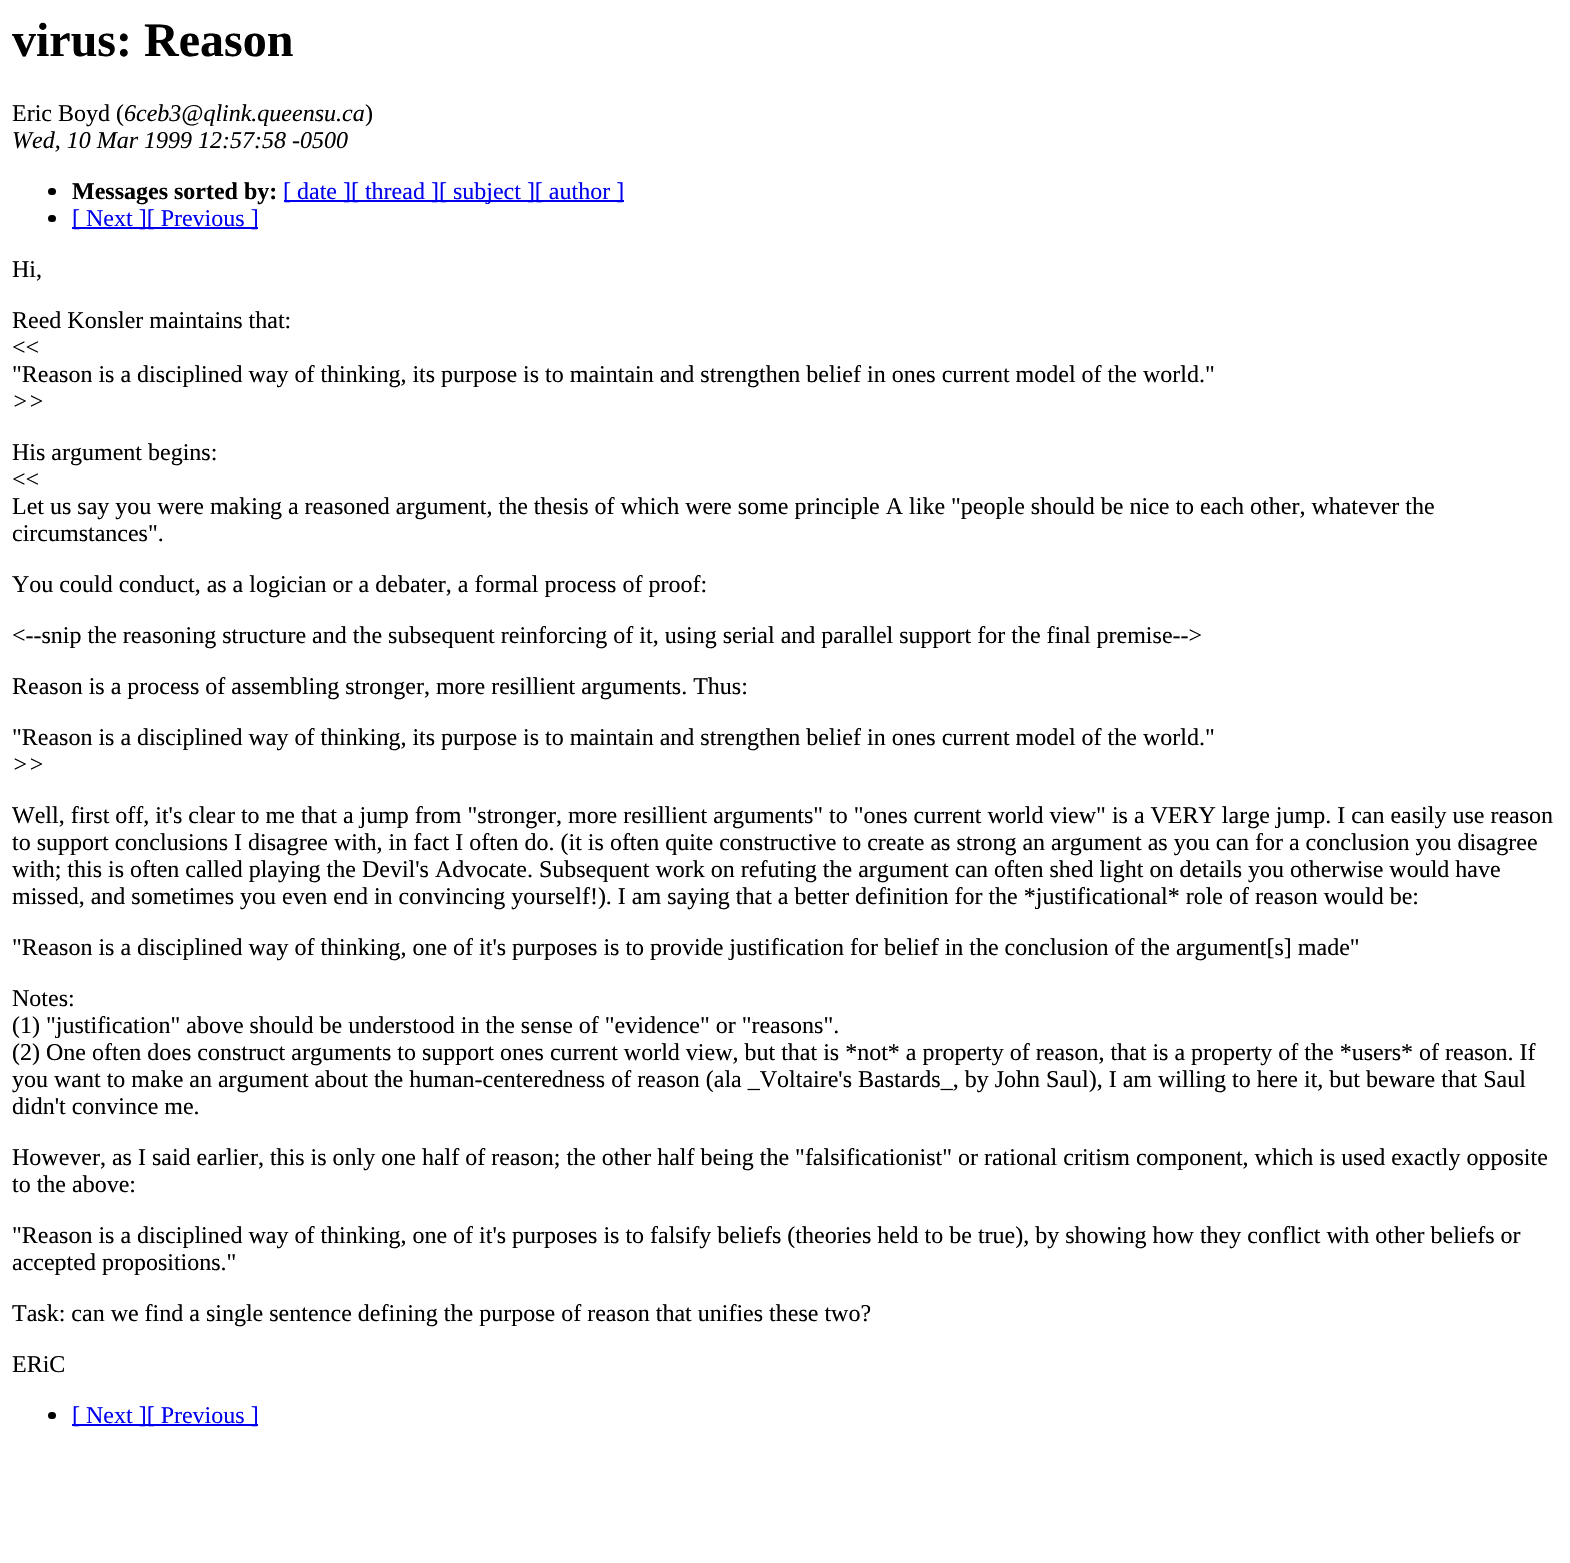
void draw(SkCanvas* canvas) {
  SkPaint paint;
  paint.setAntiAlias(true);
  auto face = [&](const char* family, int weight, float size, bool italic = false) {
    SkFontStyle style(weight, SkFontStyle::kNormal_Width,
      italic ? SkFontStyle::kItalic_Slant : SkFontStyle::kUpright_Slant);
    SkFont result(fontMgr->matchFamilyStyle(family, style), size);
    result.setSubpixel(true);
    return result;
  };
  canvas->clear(0xffffffff);
  paint.setColor(0xff000000);
  canvas->drawRoundRect(SkRect::MakeXYWH(48, 188, 8, 7), 3.5f, 3.5f, paint);
  paint.setColor(0xff0000ee);
  canvas->drawRect(SkRect::MakeXYWH(284, 200, 340, 2), paint);
  paint.setColor(0xff000000);
  canvas->drawRoundRect(SkRect::MakeXYWH(48, 215, 8, 7), 3.5f, 3.5f, paint);
  paint.setColor(0xff0000ee);
  canvas->drawRect(SkRect::MakeXYWH(72, 227, 186, 2), paint);
  paint.setColor(0xff000000);
  canvas->drawRoundRect(SkRect::MakeXYWH(48, 1412, 8, 7), 3.5f, 3.5f, paint);
  paint.setColor(0xff0000ee);
  canvas->drawRect(SkRect::MakeXYWH(72, 1424, 186, 2), paint);
  auto f0 = face("Liberation Serif", 700, 48);
  paint.setColor(0xff000000);
  canvas->drawString("virus: Reason", 12, 56, f0, paint);
  auto f1 = face("Liberation Serif", 400, 24);
  canvas->drawString("Eric Boyd (", 12, 121, f1, paint);
  auto f2 = face("Liberation Serif", 400, 24, true);
  canvas->drawString("6ceb3@qlink.queensu.ca", 124, 121, f2, paint);
  canvas->drawString(")", 365, 121, f1, paint);
  canvas->drawString("Wed, 10 Mar 1999 12:57:58 -0500", 12, 148, f2, paint);
  auto f3 = face("Liberation Serif", 700, 24);
  canvas->drawString("Messages sorted by:", 72, 199, f3, paint);
  paint.setColor(0xff0000ee);
  canvas->drawString("[ date ][ thread ][ subject ][ author ]", 283, 199, f1, paint);
  canvas->drawString("[ Next ][ Previous ]", 72, 226, f1, paint);
  paint.setColor(0xff000000);
  {
    const struct { const char* s; float x, y; } items[] = {
      {"Hi,", 12, 277},
      {"Reed Konsler maintains that:", 12, 328},
      {"<<", 12, 355},
      {"\"Reason is a disciplined way of thinking, its purpose is to maintain and strengthen belief in ones current model of the world.\"", 12, 382},
    };
    for (auto [s, x, y] : items) {
      canvas->drawString(s, x, y, f1, paint);
    }
  }
  canvas->drawString(">>", 12, 409, f2, paint);
  {
    const struct { const char* s; float x, y; } items[] = {
      {"His argument begins:", 12, 460},
      {"<<", 12, 487},
      {"Let us say you were making a reasoned argument, the thesis of which were some principle A like \"people should be nice to each other, whatever the", 12, 514},
      {"circumstances\".", 12, 541},
      {"You could conduct, as a logician or a debater, a formal process of proof:", 12, 592},
      {"<--snip the reasoning structure and the subsequent reinforcing of it, using serial and parallel support for the final premise-->", 12, 643},
      {"Reason is a process of assembling stronger, more resillient arguments. Thus:", 12, 694},
      {"\"Reason is a disciplined way of thinking, its purpose is to maintain and strengthen belief in ones current model of the world.\"", 12, 745},
    };
    for (auto [s, x, y] : items) {
      canvas->drawString(s, x, y, f1, paint);
    }
  }
  canvas->drawString(">>", 12, 772, f2, paint);
  {
    const struct { const char* s; float x, y; } items[] = {
      {"Well, first off, it's clear to me that a jump from \"stronger, more resillient arguments\" to \"ones current world view\" is a VERY large jump. I can easily use reason", 12, 823},
      {"to support conclusions I disagree with, in fact I often do. (it is often quite constructive to create as strong an argument as you can for a conclusion you disagree", 12, 850},
      {"with; this is often called playing the Devil's Advocate. Subsequent work on refuting the argument can often shed light on details you otherwise would have", 12, 877},
      {"missed, and sometimes you even end in convincing yourself!). I am saying that a better definition for the *justificational* role of reason would be:", 12, 904},
      {"\"Reason is a disciplined way of thinking, one of it's purposes is to provide justification for belief in the conclusion of the argument[s] made\"", 12, 955},
      {"Notes:", 12, 1006},
      {"(1) \"justification\" above should be understood in the sense of \"evidence\" or \"reasons\".", 12, 1033},
      {"(2) One often does construct arguments to support ones current world view, but that is *not* a property of reason, that is a property of the *users* of reason. If", 12, 1060},
      {"you want to make an argument about the human-centeredness of reason (ala _Voltaire's Bastards_, by John Saul), I am willing to here it, but beware that Saul", 12, 1087},
      {"didn't convince me.", 12, 1114},
      {"However, as I said earlier, this is only one half of reason; the other half being the \"falsificationist\" or rational critism component, which is used exactly opposite", 12, 1165},
      {"to the above:", 12, 1192},
      {"\"Reason is a disciplined way of thinking, one of it's purposes is to falsify beliefs (theories held to be true), by showing how they conflict with other beliefs or", 12, 1243},
      {"accepted propositions.\"", 12, 1270},
      {"Task: can we find a single sentence defining the purpose of reason that unifies these two?", 12, 1321},
      {"ERiC", 12, 1372},
    };
    for (auto [s, x, y] : items) {
      canvas->drawString(s, x, y, f1, paint);
    }
  }
  paint.setColor(0xff0000ee);
  canvas->drawString("[ Next ][ Previous ]", 72, 1423, f1, paint);
}
